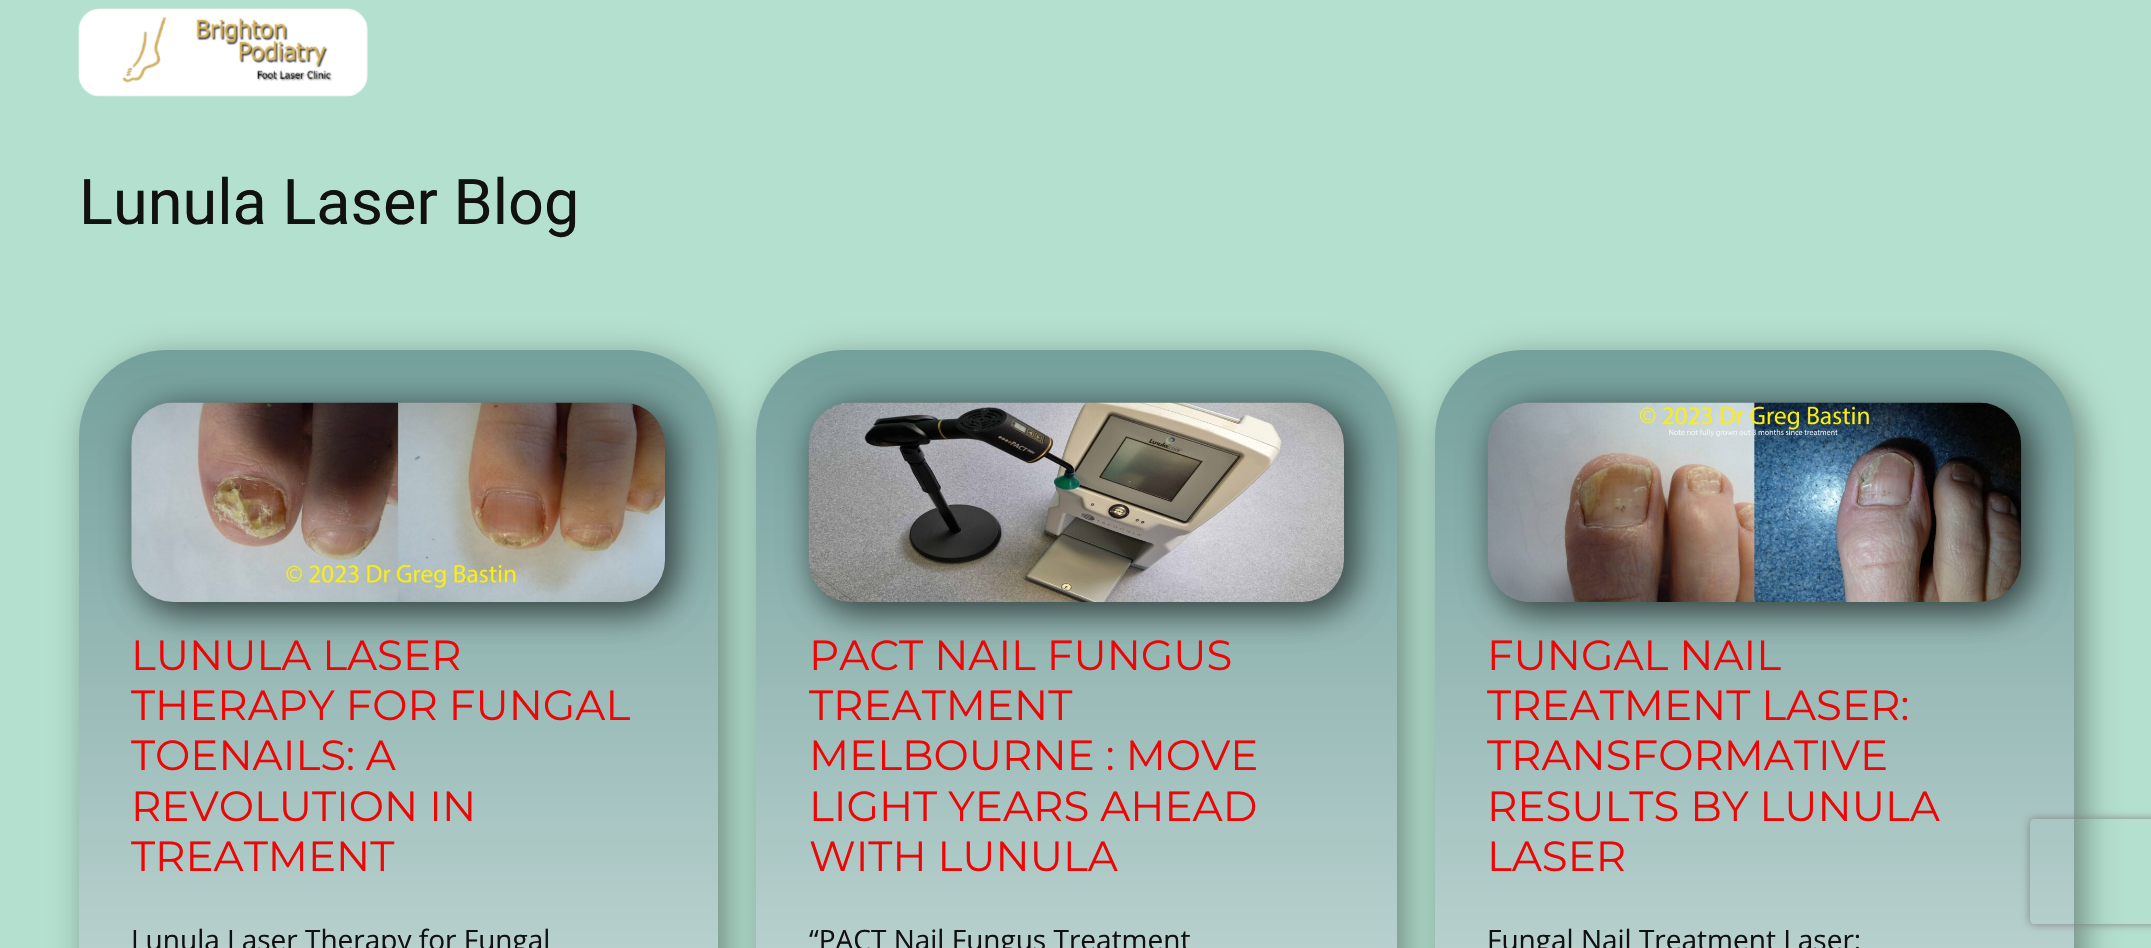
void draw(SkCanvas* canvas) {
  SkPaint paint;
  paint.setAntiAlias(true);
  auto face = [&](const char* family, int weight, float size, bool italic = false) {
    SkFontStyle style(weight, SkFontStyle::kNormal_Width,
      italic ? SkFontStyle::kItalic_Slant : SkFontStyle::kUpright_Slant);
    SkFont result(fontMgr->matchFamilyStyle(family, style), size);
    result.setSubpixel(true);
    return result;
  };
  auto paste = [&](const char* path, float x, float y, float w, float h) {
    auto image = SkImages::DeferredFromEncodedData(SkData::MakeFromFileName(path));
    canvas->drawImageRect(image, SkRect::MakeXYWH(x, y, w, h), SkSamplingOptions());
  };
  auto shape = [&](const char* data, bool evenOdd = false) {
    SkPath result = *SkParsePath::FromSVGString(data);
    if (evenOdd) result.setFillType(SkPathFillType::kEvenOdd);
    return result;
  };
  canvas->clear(0xffb4e0cf);
  paste("img/1.png", 78, 8, 290, 89);
  paint.setColor(0x66000000);
  paint.setMaskFilter(SkMaskFilter::MakeBlur(kNormal_SkBlurStyle, 17.5f));
  canvas->drawRoundRect(SkRect::MakeXYWH(88, 359, 638, 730), 88, 88, paint);
  paint.setMaskFilter(nullptr);
  {
    const SkColor colors[] = {0xff74a09c, 0xfff3fbfa};
    const float stops[] = {0, 1};
    const SkPoint ends[] = {{398, 350}, {398, 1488}};
    paint.setShader(SkGradientShader::MakeLinear(ends, colors, stops, 2, SkTileMode::kClamp));
    paint.setAlpha(255);
  }
  canvas->drawRoundRect(SkRect::MakeXYWH(79, 350, 639, 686), 88, 88, paint);
  paint.setShader(nullptr);
  paint.setColor(0x66000000);
  paint.setMaskFilter(SkMaskFilter::MakeBlur(kNormal_SkBlurStyle, 17.5f));
  canvas->drawRoundRect(SkRect::MakeXYWH(140, 411, 534, 200), 42, 42, paint);
  paint.setMaskFilter(nullptr);
  paint.setMaskFilter(SkMaskFilter::MakeBlur(kNormal_SkBlurStyle, 17.5f));
  canvas->drawRoundRect(SkRect::MakeXYWH(140, 411, 534, 200), 42, 42, paint);
  paint.setMaskFilter(nullptr);
  paste("img/2.png", 131, 402, 534, 200);
  paint.setMaskFilter(SkMaskFilter::MakeBlur(kNormal_SkBlurStyle, 17.5f));
  canvas->drawRoundRect(SkRect::MakeXYWH(765, 359, 640, 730), 88, 88, paint);
  paint.setMaskFilter(nullptr);
  {
    const SkColor colors[] = {0xff74a09c, 0xfff3fbfa};
    const float stops[] = {0, 1};
    const SkPoint ends[] = {{1076, 350}, {1076, 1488}};
    paint.setShader(SkGradientShader::MakeLinear(ends, colors, stops, 2, SkTileMode::kClamp));
    paint.setAlpha(255);
  }
  canvas->drawRoundRect(SkRect::MakeXYWH(756, 350, 641, 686), 88, 88, paint);
  paint.setShader(nullptr);
  paint.setColor(0x66000000);
  paint.setMaskFilter(SkMaskFilter::MakeBlur(kNormal_SkBlurStyle, 17.5f));
  canvas->drawRoundRect(SkRect::MakeXYWH(817, 411, 536, 200), 42, 42, paint);
  paint.setMaskFilter(nullptr);
  paint.setMaskFilter(SkMaskFilter::MakeBlur(kNormal_SkBlurStyle, 17.5f));
  canvas->drawRoundRect(SkRect::MakeXYWH(817, 411, 536, 200), 42, 42, paint);
  paint.setMaskFilter(nullptr);
  paste("img/3.png", 808, 402, 536, 200);
  paint.setMaskFilter(SkMaskFilter::MakeBlur(kNormal_SkBlurStyle, 17.5f));
  canvas->drawRoundRect(SkRect::MakeXYWH(1444, 359, 639, 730), 88, 88, paint);
  paint.setMaskFilter(nullptr);
  {
    const SkColor colors[] = {0xff74a09c, 0xfff3fbfa};
    const float stops[] = {0, 1};
    const SkPoint ends[] = {{1754, 350}, {1754, 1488}};
    paint.setShader(SkGradientShader::MakeLinear(ends, colors, stops, 2, SkTileMode::kClamp));
    paint.setAlpha(255);
  }
  canvas->drawRoundRect(SkRect::MakeXYWH(1435, 350, 639, 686), 88, 88, paint);
  paint.setShader(nullptr);
  paint.setColor(0x66000000);
  paint.setMaskFilter(SkMaskFilter::MakeBlur(kNormal_SkBlurStyle, 17.5f));
  canvas->drawRoundRect(SkRect::MakeXYWH(1496, 411, 534, 200), 42, 42, paint);
  paint.setMaskFilter(nullptr);
  paint.setMaskFilter(SkMaskFilter::MakeBlur(kNormal_SkBlurStyle, 17.5f));
  canvas->drawRoundRect(SkRect::MakeXYWH(1496, 411, 534, 200), 42, 42, paint);
  paint.setMaskFilter(nullptr);
  paste("img/4.png", 1487, 402, 535, 200);
  canvas->save();
  canvas->clipPath(shape("M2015 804H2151V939H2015ZM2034 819H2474C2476 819 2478 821 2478 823V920C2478 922 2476 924 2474 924H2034C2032 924 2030 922 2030 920V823C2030 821 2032 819 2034 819Z", true), true);
  paint.setColor(0xff808080);
  paint.setMaskFilter(SkMaskFilter::MakeBlur(kNormal_SkBlurStyle, 4.5f));
  canvas->drawRoundRect(SkRect::MakeXYWH(2030, 819, 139, 105), 4, 4, paint);
  paint.setMaskFilter(nullptr);
  canvas->restore();
  auto f0 = face("Roboto", 400, 63);
  paint.setColor(0xff111111);
  canvas->drawString("Lunula Laser Blog", 79, 224, f0, paint);
  auto f1 = face("Montserrat", 400, 42);
  paint.setColor(0xffec0606);
  {
    const struct { const char* s; float x, y; } items[] = {
      {"LUNULA LASER", 131, 670},
      {"THERAPY FOR FUNGAL", 131, 720},
      {"TOENAILS: A", 131, 770},
      {"REVOLUTION IN", 131, 821},
      {"TREATMENT", 131, 871},
    };
    for (auto [s, x, y] : items) {
      canvas->drawString(s, x, y, f1, paint);
    }
  }
  auto f2 = face("Open Sans", 400, 28);
  paint.setColor(0xff111111);
  canvas->drawString("Lunula Laser Therapy for Fungal", 131, 950, f2, paint);
  paint.setColor(0xffec0606);
  {
    const struct { const char* s; float x, y; } items[] = {
      {"PACT NAIL FUNGUS", 809, 670},
      {"TREATMENT", 809, 720},
      {"MELBOURNE : MOVE", 809, 770},
      {"LIGHT YEARS AHEAD", 809, 821},
      {"WITH LUNULA", 809, 871},
    };
    for (auto [s, x, y] : items) {
      canvas->drawString(s, x, y, f1, paint);
    }
  }
  paint.setColor(0xff111111);
  canvas->drawString("“PACT Nail Fungus Treatment", 809, 950, f2, paint);
  paint.setColor(0xffec0606);
  {
    const struct { const char* s; float x, y; } items[] = {
      {"FUNGAL NAIL", 1487, 670},
      {"TREATMENT LASER:", 1487, 720},
      {"TRANSFORMATIVE", 1487, 770},
      {"RESULTS BY LUNULA", 1487, 821},
      {"LASER", 1487, 871},
    };
    for (auto [s, x, y] : items) {
      canvas->drawString(s, x, y, f1, paint);
    }
  }
  paint.setColor(0xff111111);
  canvas->drawString("Fungal Nail Treatment Laser:", 1487, 950, f2, paint);
}
